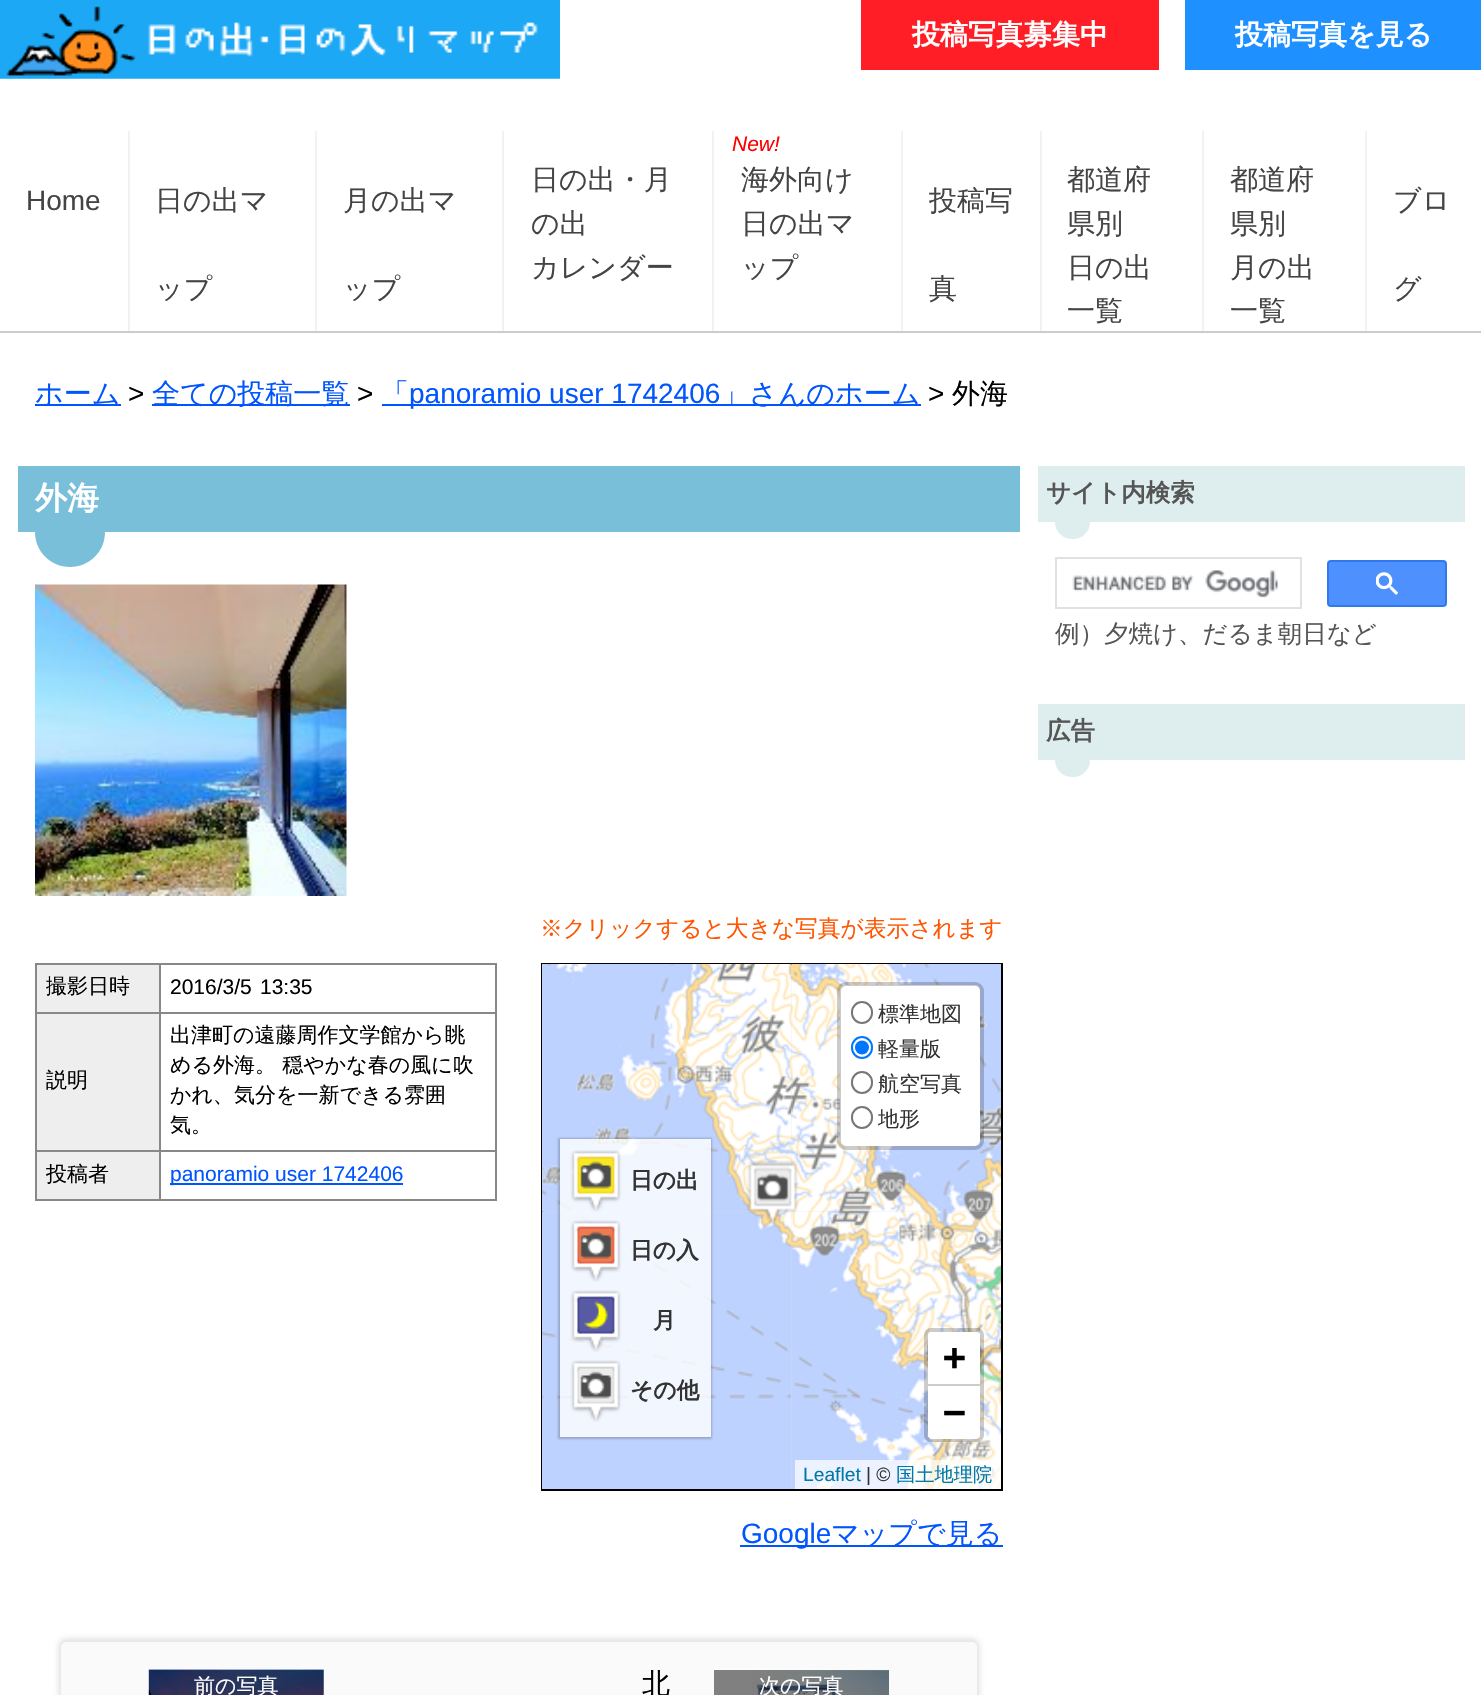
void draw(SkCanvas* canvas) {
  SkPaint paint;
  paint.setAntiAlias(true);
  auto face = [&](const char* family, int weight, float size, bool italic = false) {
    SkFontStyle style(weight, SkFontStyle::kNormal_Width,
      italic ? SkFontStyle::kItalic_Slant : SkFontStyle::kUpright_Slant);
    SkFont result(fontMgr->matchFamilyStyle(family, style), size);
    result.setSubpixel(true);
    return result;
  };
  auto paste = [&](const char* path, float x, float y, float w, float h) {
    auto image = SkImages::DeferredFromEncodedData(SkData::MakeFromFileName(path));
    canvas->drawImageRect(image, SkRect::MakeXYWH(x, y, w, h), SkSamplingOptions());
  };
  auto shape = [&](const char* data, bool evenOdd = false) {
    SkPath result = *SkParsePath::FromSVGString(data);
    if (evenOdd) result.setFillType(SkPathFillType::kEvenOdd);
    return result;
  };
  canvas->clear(0xffffffff);
  paste("img/1.png", 0, 0, 560, 79);
  {
    const struct { float x, y, w, h; SkColor color; } items[] = {
      {861, 0, 298, 70, 0xffff1e25},
      {1185, 0, 296, 70, 0xff1e90ff},
      {0, 331, 1481, 2, 0xffcccccc},
      {128, 131, 2, 200, 0xfff2f2f2},
      {315, 131, 2, 200, 0xfff2f2f2},
      {502, 131, 2, 200, 0xfff2f2f2},
      {712, 131, 2, 200, 0xfff2f2f2},
      {901, 131, 2, 200, 0xfff2f2f2},
      {1040, 131, 2, 200, 0xfff2f2f2},
      {1202, 131, 2, 200, 0xfff2f2f2},
      {1365, 131, 2, 200, 0xfff2f2f2},
      {35, 404, 86, 2, 0xff0055ff},
      {152, 404, 198, 2, 0xff0055ff},
      {382, 404, 539, 2, 0xff0055ff},
      {18, 466, 1002, 66, 0xff79bfd9},
    };
    for (auto [x, y, w, h, color] : items) {
      paint.setColor(color);
      canvas->drawRect(SkRect::MakeXYWH(x, y, w, h), paint);
    }
  }
  canvas->drawPath(shape("M35 532H105C105 551.5 89.5 567 70 567C50.5 567 35 551.5 35 532Z"), paint);
  paste("img/2.png", 35, 584, 312, 312);
  {
    const struct { float x, y, w, h; SkColor color; } items[] = {
      {37, 965, 122, 47, 0xffeeeeee},
      {159, 963, 338, 2, 0xff888888},
      {159, 1012, 338, 2, 0xff888888},
      {159, 1150, 338, 2, 0xff888888},
      {495, 1150, 2, 51, 0xff888888},
      {159, 1199, 338, 2, 0xff888888},
      {159, 1150, 2, 51, 0xff888888},
      {35, 1150, 126, 2, 0xff888888},
      {159, 1012, 2, 140, 0xff888888},
      {35, 1012, 126, 2, 0xff888888},
      {159, 963, 2, 50, 0xff888888},
      {35, 963, 126, 2, 0xff888888},
      {35, 1199, 126, 2, 0xff888888},
      {35, 1150, 2, 51, 0xff888888},
      {35, 1012, 2, 140, 0xff888888},
      {35, 963, 2, 50, 0xff888888},
      {495, 1012, 2, 140, 0xff888888},
      {495, 963, 2, 50, 0xff888888},
      {37, 1014, 122, 136, 0xffeeeeee},
      {37, 1152, 122, 47, 0xffeeeeee},
      {170, 1183, 233, 2, 0xff0055ff},
    };
    for (auto [x, y, w, h, color] : items) {
      paint.setColor(color);
      canvas->drawRect(SkRect::MakeXYWH(x, y, w, h), paint);
    }
  }
  paint.setColor(0xffdddddd);
  canvas->drawRect(SkRect::MakeXYWH(542, 964, 460, 526), paint);
  paint.setStroke(true);
  paint.setStrokeWidth(2);
  paint.setColor(0xff000000);
  canvas->drawRect(SkRect::MakeXYWH(542, 964, 460, 526), paint);
  paste("img/3.png", 542, 964, 249, 247);
  paste("img/4.png", 790, 964, 211, 247);
  paste("img/5.png", 542, 1210, 249, 279);
  paste("img/6.png", 790, 1210, 211, 279);
  paste("img/7.png", 747, 1160, 51, 64);
  canvas->save();
  canvas->clipPath(shape("M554 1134H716V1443H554ZM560 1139H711V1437H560Z", true), true);
  paint.setStroke(false);
  paint.setColor(0x33000000);
  paint.setMaskFilter(SkMaskFilter::MakeBlur(kNormal_SkBlurStyle, 1));
  canvas->drawRect(SkRect::MakeXYWH(558, 1138, 154, 301), paint);
  paint.setMaskFilter(nullptr);
  canvas->restore();
  paint.setColor(0xccffffff);
  canvas->drawRect(SkRect::MakeXYWH(560, 1139, 151, 298), paint);
  paste("img/8.png", 570, 1150, 51, 62);
  paste("img/9.png", 570, 1220, 51, 62);
  paste("img/10.png", 570, 1290, 51, 62);
  paste("img/11.png", 570, 1360, 51, 62);
  paint.setColor(0xffffffff);
  canvas->drawRoundRect(SkRect::MakeXYWH(840, 985, 140, 161), 5, 5, paint);
  paint.setStroke(true);
  paint.setStrokeWidth(4);
  paint.setColor(0x33000000);
  canvas->drawRoundRect(SkRect::MakeXYWH(839, 984, 143, 164), 7, 7, paint);
  paint.setStrokeWidth(2);
  paint.setColor(0xff767676);
  canvas->drawRoundRect(SkRect::MakeXYWH(852, 1002, 20, 21), 10, 10, paint);
  paint.setColor(0xff0075ff);
  canvas->drawRoundRect(SkRect::MakeXYWH(852, 1037, 20, 21), 10, 10, paint);
  paint.setStroke(false);
  canvas->drawCircle(862, 1047.5f, 7, paint);
  paint.setStroke(true);
  paint.setColor(0xff767676);
  canvas->drawRoundRect(SkRect::MakeXYWH(852, 1072, 20, 21), 10, 10, paint);
  canvas->drawRoundRect(SkRect::MakeXYWH(852, 1107, 20, 21), 10, 10, paint);
  paint.setStrokeWidth(4);
  paint.setColor(0x33000000);
  canvas->drawRoundRect(SkRect::MakeXYWH(926, 1330, 56, 110), 5, 5, paint);
  paint.setStroke(false);
  paint.setColor(0xffffffff);
  canvas->drawPath(shape("M932 1332H976C978 1332 980 1334 980 1336V1386H928V1336C928 1334 930 1332 932 1332Z"), paint);
  paint.setColor(0xffcccccc);
  canvas->drawRect(SkRect::MakeXYWH(928, 1384, 52, 2), paint);
  paint.setColor(0xffffffff);
  canvas->drawPath(shape("M928 1386H980V1435C980 1437 978 1439 976 1439H932C930 1439 928 1437 928 1435Z"), paint);
  paint.setColor(0xb3ffffff);
  canvas->drawRect(SkRect::MakeXYWH(795, 1460, 206, 29), paint);
  paint.setColor(0xff0055ff);
  canvas->drawRect(SkRect::MakeXYWH(740, 1545, 263, 2), paint);
  paint.setColor(0x1a000000);
  paint.setMaskFilter(SkMaskFilter::MakeBlur(kNormal_SkBlurStyle, 2.5f));
  canvas->drawRoundRect(SkRect::MakeXYWH(58, 1638, 922, 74), 9, 9, paint);
  paint.setMaskFilter(nullptr);
  paint.setColor(0xfffafafa);
  canvas->drawRoundRect(SkRect::MakeXYWH(61, 1642, 916, 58), 5, 5, paint);
  paste("img/12.png", 148, 1669, 176, 26);
  paste("img/13.png", 714, 1669, 175, 26);
  paint.setColor(0xffdeedee);
  canvas->drawRect(SkRect::MakeXYWH(1038, 466, 427, 56), paint);
  canvas->drawPath(shape("M1055 522H1090C1090 531.5 1082.5 539 1073 539H1072C1062.5 539 1055 531.5 1055 522Z"), paint);
  paint.setStroke(true);
  paint.setStrokeWidth(2);
  paint.setColor(0xffdfe1e5);
  canvas->drawRect(SkRect::MakeXYWH(1056, 558, 245, 50), paint);
  paste("img/14.png", 1072, 570, 206, 28);
  paint.setStroke(false);
  paint.setColor(0xff4d90fe);
  canvas->drawRoundRect(SkRect::MakeXYWH(1328, 561, 118, 45), 3, 3, paint);
  paint.setStroke(true);
  paint.setColor(0xff3079ed);
  canvas->drawRoundRect(SkRect::MakeXYWH(1328, 561, 118, 45), 3, 3, paint);
  paste("img/15.png", 1376, 572, 22, 23);
  paint.setStroke(false);
  paint.setColor(0xffdeedee);
  canvas->drawRect(SkRect::MakeXYWH(1038, 704, 427, 56), paint);
  canvas->drawPath(shape("M1055 760H1090C1090 769.5 1082.5 777 1073 777H1072C1062.5 777 1055 769.5 1055 760Z"), paint);
  auto f0 = face("WenQuanYi Zen Hei", 700, 28);
  paint.setColor(0xffffffff);
  canvas->drawString("投稿写真募集中", 912, 44, f0, paint);
  canvas->drawString("投稿写真を見る", 1235, 44, f0, paint);
  auto f1 = face("Liberation Sans", 400, 28);
  paint.setColor(0xff444444);
  canvas->drawString("Home", 26, 210, f1, paint);
  auto f2 = face("WenQuanYi Zen Hei", 500, 28);
  {
    const struct { const char* s; float x, y; } items[] = {
      {"日の出マ", 155, 210},
      {"ップ", 155, 298},
      {"月の出マ", 343, 210},
      {"ップ", 343, 298},
      {"日の出・月", 531, 189},
      {"の出", 531, 233},
      {"カレンダー", 531, 277},
    };
    for (auto [s, x, y] : items) {
      canvas->drawString(s, x, y, f2, paint);
    }
  }
  auto f3 = face("Liberation Sans", 400, 21, true);
  paint.setColor(0xffff0000);
  canvas->drawString("New!", 732, 151, f3, paint);
  paint.setColor(0xff444444);
  {
    const struct { const char* s; float x, y; } items[] = {
      {"海外向け", 741, 189},
      {"日の出マ", 741, 233},
      {"ップ", 741, 277},
      {"投稿写", 929, 210},
      {"真", 929, 298},
      {"都道府", 1067, 189},
      {"県別", 1067, 233},
      {"日の出", 1067, 277},
      {"一覧", 1067, 320},
      {"都道府", 1230, 189},
      {"県別", 1230, 233},
      {"月の出", 1230, 277},
      {"一覧", 1230, 320},
      {"ブロ", 1393, 210},
      {"グ", 1393, 298},
    };
    for (auto [s, x, y] : items) {
      canvas->drawString(s, x, y, f2, paint);
    }
  }
  paint.setColor(0xff0055ff);
  canvas->drawString("ホーム", 35, 403, f2, paint);
  paint.setColor(0xff000000);
  canvas->drawString(">", 128, 403, f1, paint);
  paint.setColor(0xff0055ff);
  canvas->drawString("全ての投稿一覧", 152, 403, f2, paint);
  paint.setColor(0xff000000);
  canvas->drawString(">", 357, 403, f1, paint);
  paint.setColor(0xff0055ff);
  canvas->drawString("「", 381, 403, f2, paint);
  canvas->drawString("panoramio user 1742406", 409, 403, f1, paint);
  canvas->drawString("」さんのホーム", 721, 403, f2, paint);
  paint.setColor(0xff000000);
  canvas->drawString(">", 928, 403, f1, paint);
  canvas->drawString("外海", 952, 403, f2, paint);
  auto f4 = face("WenQuanYi Zen Hei", 700, 32);
  paint.setColor(0xffffffff);
  canvas->drawString("外海", 35, 509, f4, paint);
  auto f5 = face("WenQuanYi Zen Hei", 500, 22.75f);
  paint.setColor(0xffff5500);
  canvas->drawString("※クリックすると大きな写真が表示されます", 540, 936, f5, paint);
  auto f6 = face("WenQuanYi Zen Hei", 500, 21);
  paint.setColor(0xff000000);
  canvas->drawString("撮影日時", 46, 993, f6, paint);
  auto f7 = face("Liberation Sans", 400, 21);
  canvas->drawString("2016/3/5", 170, 994, f7, paint);
  canvas->drawString("13:35", 260, 994, f7, paint);
  {
    const struct { const char* s; float x, y; } items[] = {
      {"説明", 46, 1087},
      {"出津町の遠藤周作文学館から眺", 170, 1042},
      {"める外海。 穏やかな春の風に吹", 170, 1072},
      {"かれ、気分を一新できる雰囲", 170, 1102},
      {"気。", 170, 1132},
      {"投稿者", 46, 1181},
    };
    for (auto [s, x, y] : items) {
      canvas->drawString(s, x, y, f6, paint);
    }
  }
  paint.setColor(0xff0055ff);
  canvas->drawString("panoramio user 1742406", 170, 1181, f7, paint);
  auto f8 = face("WenQuanYi Zen Hei", 700, 22.75f);
  paint.setColor(0xff333333);
  {
    const struct { const char* s; float x, y; } items[] = {
      {"日の出", 630, 1188},
      {"日の入", 630, 1258},
      {"月", 653, 1328},
      {"その他", 630, 1398},
    };
    for (auto [s, x, y] : items) {
      canvas->drawString(s, x, y, f8, paint);
    }
  }
  {
    const struct { const char* s; float x, y; } items[] = {
      {"標準地図", 878, 1021},
      {"軽量版", 878, 1056},
      {"航空写真", 878, 1091},
      {"地形", 878, 1126},
    };
    for (auto [s, x, y] : items) {
      canvas->drawString(s, x, y, f6, paint);
    }
  }
  auto f9 = face("DejaVu Sans Mono", 700, 38);
  paint.setColor(0xff000000);
  canvas->drawString("+", 943, 1370, f9, paint);
  canvas->drawString("−", 943, 1425, f9, paint);
  auto f10 = face("Liberation Sans", 400, 19.25f);
  paint.setColor(0xff0078a8);
  canvas->drawString("Leaflet", 803, 1481, f10, paint);
  paint.setColor(0xff333333);
  canvas->drawString("| ©", 866, 1481, f10, paint);
  auto f11 = face("WenQuanYi Zen Hei", 500, 19.25f);
  paint.setColor(0xff0078a8);
  canvas->drawString("国土地理院", 896, 1481, f11, paint);
  paint.setColor(0xff0055ff);
  canvas->drawString("Google", 741, 1543, f1, paint);
  canvas->drawString("マップで見る", 831, 1543, f2, paint);
  paint.setColor(0xffffffff);
  canvas->drawString("前の写真", 194, 1693, f6, paint);
  paint.setColor(0xff000000);
  canvas->drawString("北", 642, 1693, f2, paint);
  paint.setColor(0xffffffff);
  canvas->drawString("次の写真", 759, 1693, f6, paint);
  auto f12 = face("WenQuanYi Zen Hei", 700, 24.5f);
  paint.setColor(0xff555555);
  canvas->drawString("サイト内検索", 1046, 501, f12, paint);
  auto f13 = face("WenQuanYi Zen Hei", 500, 24.5f);
  canvas->drawString("例）夕焼け、だるま朝日など", 1055, 642, f13, paint);
  canvas->drawString("広告", 1046, 739, f12, paint);
}
